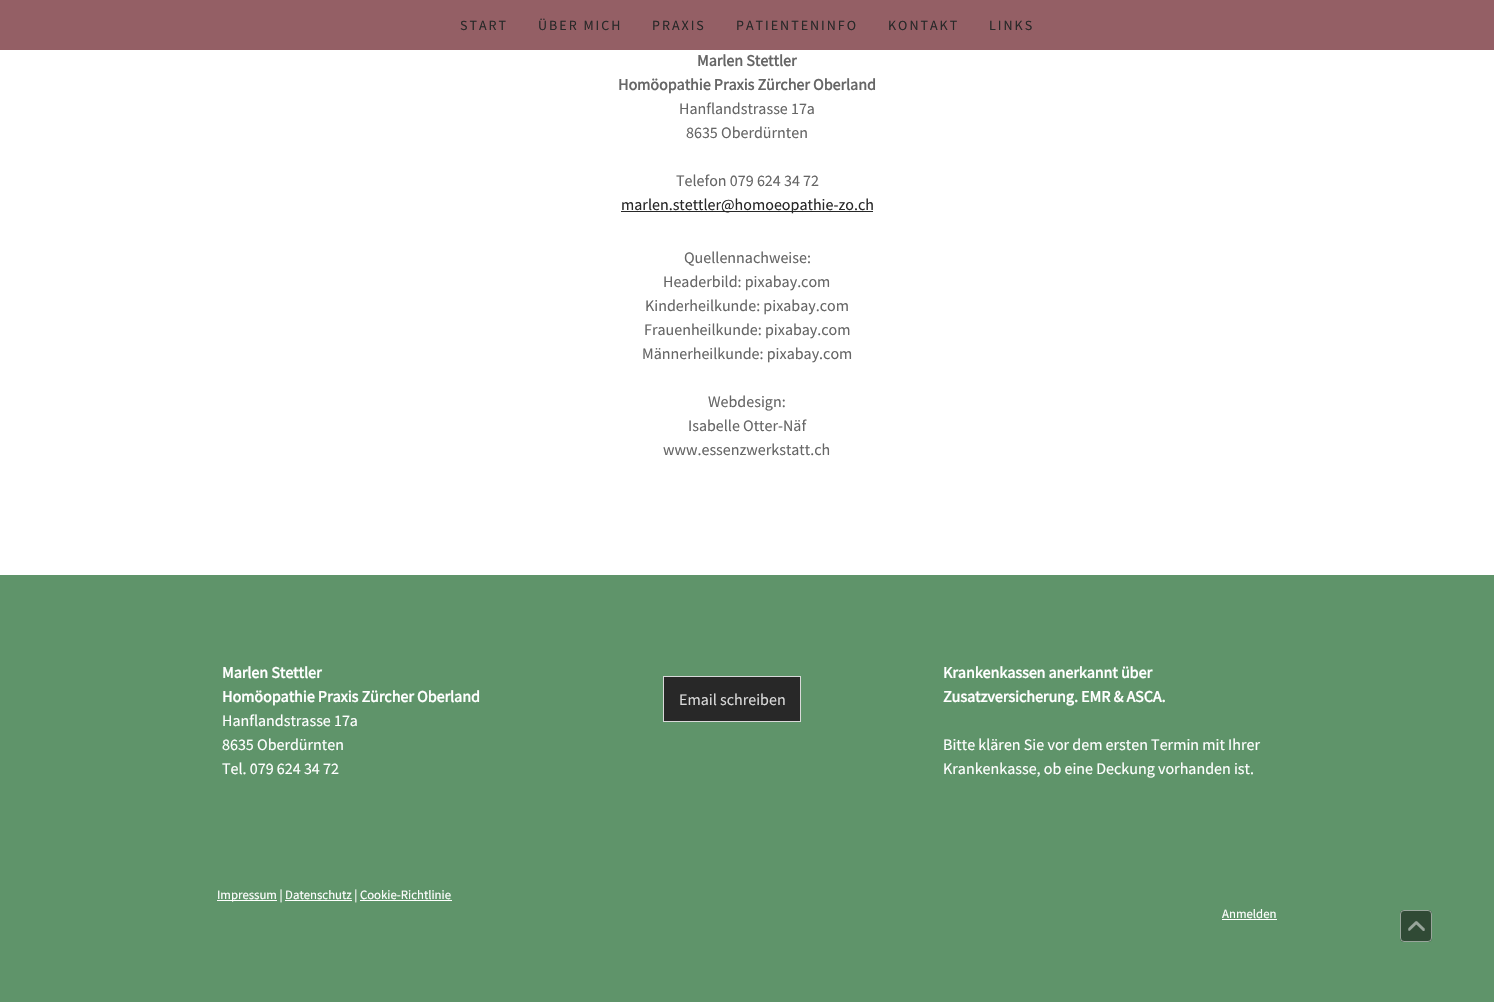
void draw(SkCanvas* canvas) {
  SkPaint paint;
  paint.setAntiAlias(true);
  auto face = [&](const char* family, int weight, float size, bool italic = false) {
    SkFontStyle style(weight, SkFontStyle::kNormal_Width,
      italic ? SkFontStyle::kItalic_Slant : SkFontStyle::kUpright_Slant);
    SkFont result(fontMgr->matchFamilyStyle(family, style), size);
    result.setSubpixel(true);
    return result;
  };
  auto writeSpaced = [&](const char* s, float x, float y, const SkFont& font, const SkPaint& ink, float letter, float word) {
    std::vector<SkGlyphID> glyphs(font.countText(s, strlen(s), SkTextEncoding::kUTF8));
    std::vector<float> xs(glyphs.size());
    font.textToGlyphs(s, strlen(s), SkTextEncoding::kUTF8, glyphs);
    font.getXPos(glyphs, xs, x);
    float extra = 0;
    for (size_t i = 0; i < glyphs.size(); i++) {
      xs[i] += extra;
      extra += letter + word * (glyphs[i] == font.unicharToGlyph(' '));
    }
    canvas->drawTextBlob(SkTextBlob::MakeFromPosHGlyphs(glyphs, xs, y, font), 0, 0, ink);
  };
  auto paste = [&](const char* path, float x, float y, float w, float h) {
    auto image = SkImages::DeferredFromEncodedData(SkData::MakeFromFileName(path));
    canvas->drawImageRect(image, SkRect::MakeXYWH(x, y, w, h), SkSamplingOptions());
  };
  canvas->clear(0xffffffff);
  {
    const struct { float x, y, w, h; SkColor color; } items[] = {
      {0, 0, 1494, 50, 0xff945f65},
      {621, 211, 252, 1, 0xff282828},
      {0, 575, 1494, 427, 0xff5f946a},
    };
    for (auto [x, y, w, h, color] : items) {
      paint.setColor(color);
      canvas->drawRect(SkRect::MakeXYWH(x, y, w, h), paint);
    }
  }
  paint.setColor(0xff282828);
  canvas->drawRect(SkRect::MakeXYWH(663.5f, 676.5f, 137, 45), paint);
  paint.setStroke(true);
  paint.setStrokeWidth(1);
  paint.setColor(0xffd9d9d9);
  canvas->drawRect(SkRect::MakeXYWH(663.5f, 676.5f, 137, 45), paint);
  paint.setStroke(false);
  {
    const struct { float x, y, w, h; SkColor color; } items[] = {
      {217, 900, 60, 1, 0xffffffff},
      {285, 900, 67, 1, 0xffffffff},
      {360, 900, 92, 1, 0xffffffff},
      {1222, 919, 55, 1, 0xffffffff},
    };
    for (auto [x, y, w, h, color] : items) {
      paint.setColor(color);
      canvas->drawRect(SkRect::MakeXYWH(x, y, w, h), paint);
    }
  }
  paint.setColor(0xff304a35);
  canvas->drawRoundRect(SkRect::MakeXYWH(1400, 910, 32, 32), 4, 4, paint);
  paint.setStroke(true);
  paint.setColor(0x80ffffff);
  canvas->drawRoundRect(SkRect::MakeXYWH(1400.5f, 910.5f, 31, 31), 3.5f, 3.5f, paint);
  paste("img/1.png", 1408, 921, 17, 10);
  auto f0 = face("Source Sans Pro", 400, 14);
  paint.setStroke(false);
  paint.setColor(0xff282828);
  {
    const struct { const char* s; float x, y; } items[] = {
      {"START", 460, 30},
      {"ÜBER MICH", 538, 30},
      {"PRAXIS", 652, 30},
      {"PATIENTENINFO", 736, 30},
      {"KONTAKT", 888, 30},
      {"LINKS", 989, 30},
    };
    for (auto [s, x, y] : items) {
      writeSpaced(s, x, y, f0, paint, 2, 0);
    }
  }
  auto f1 = face("Source Sans Pro", 700, 16);
  paint.setColor(0xff666666);
  canvas->drawString("Marlen Stettler", 697, 66, f1, paint);
  canvas->drawString("Homöopathie Praxis Zürcher Oberland", 618, 90, f1, paint);
  auto f2 = face("Source Sans Pro", 400, 16);
  {
    const struct { const char* s; float x, y; } items[] = {
      {"Hanflandstrasse 17a", 679, 114},
      {"8635 Oberdürnten", 686, 138},
      {"Telefon 079 624 34 72", 676, 186},
    };
    for (auto [s, x, y] : items) {
      canvas->drawString(s, x, y, f2, paint);
    }
  }
  paint.setColor(0xff282828);
  canvas->drawString("marlen.stettler@homoeopathie-zo.ch", 621, 210, f2, paint);
  paint.setColor(0xff666666);
  {
    const struct { const char* s; float x, y; } items[] = {
      {"Quellennachweise:", 684, 263},
      {"Headerbild: pixabay.com", 663, 287},
      {"Kinderheilkunde: pixabay.com", 645, 311},
      {"Frauenheilkunde: pixabay.com", 644, 335},
      {"Männerheilkunde: pixabay.com", 642, 359},
      {"Webdesign:", 708, 407},
      {"Isabelle Otter-Näf", 688, 431},
      {"www.essenzwerkstatt.ch", 663, 455},
    };
    for (auto [s, x, y] : items) {
      canvas->drawString(s, x, y, f2, paint);
    }
  }
  paint.setColor(0xffffffff);
  canvas->drawString("Marlen Stettler", 222, 678, f1, paint);
  canvas->drawString("Homöopathie Praxis Zürcher Oberland", 222, 702, f1, paint);
  {
    const struct { const char* s; float x, y; } items[] = {
      {"Hanflandstrasse 17a", 222, 726},
      {"8635 Oberdürnten", 222, 750},
      {"Tel. 079 624 34 72", 222, 774},
    };
    for (auto [s, x, y] : items) {
      canvas->drawString(s, x, y, f2, paint);
    }
  }
  paint.setColor(0xffd9d9d9);
  canvas->drawString("Email schreiben", 679, 705, f2, paint);
  paint.setColor(0xffffffff);
  canvas->drawString("Krankenkassen anerkannt über", 943, 678, f1, paint);
  canvas->drawString("Zusatzversicherung. EMR & ASCA.", 943, 702, f1, paint);
  canvas->drawString("Bitte klären Sie vor dem ersten Termin mit Ihrer", 943, 750, f2, paint);
  canvas->drawString("Krankenkasse, ob eine Deckung vorhanden ist.", 943, 774, f2, paint);
  auto f3 = face("Source Sans Pro", 400, 12.75f);
  canvas->drawString("Impressum | Datenschutz | Cookie-Richtlinie", 217, 899, f3, paint);
  canvas->drawString("Anmelden", 1222, 918, f3, paint);
}
